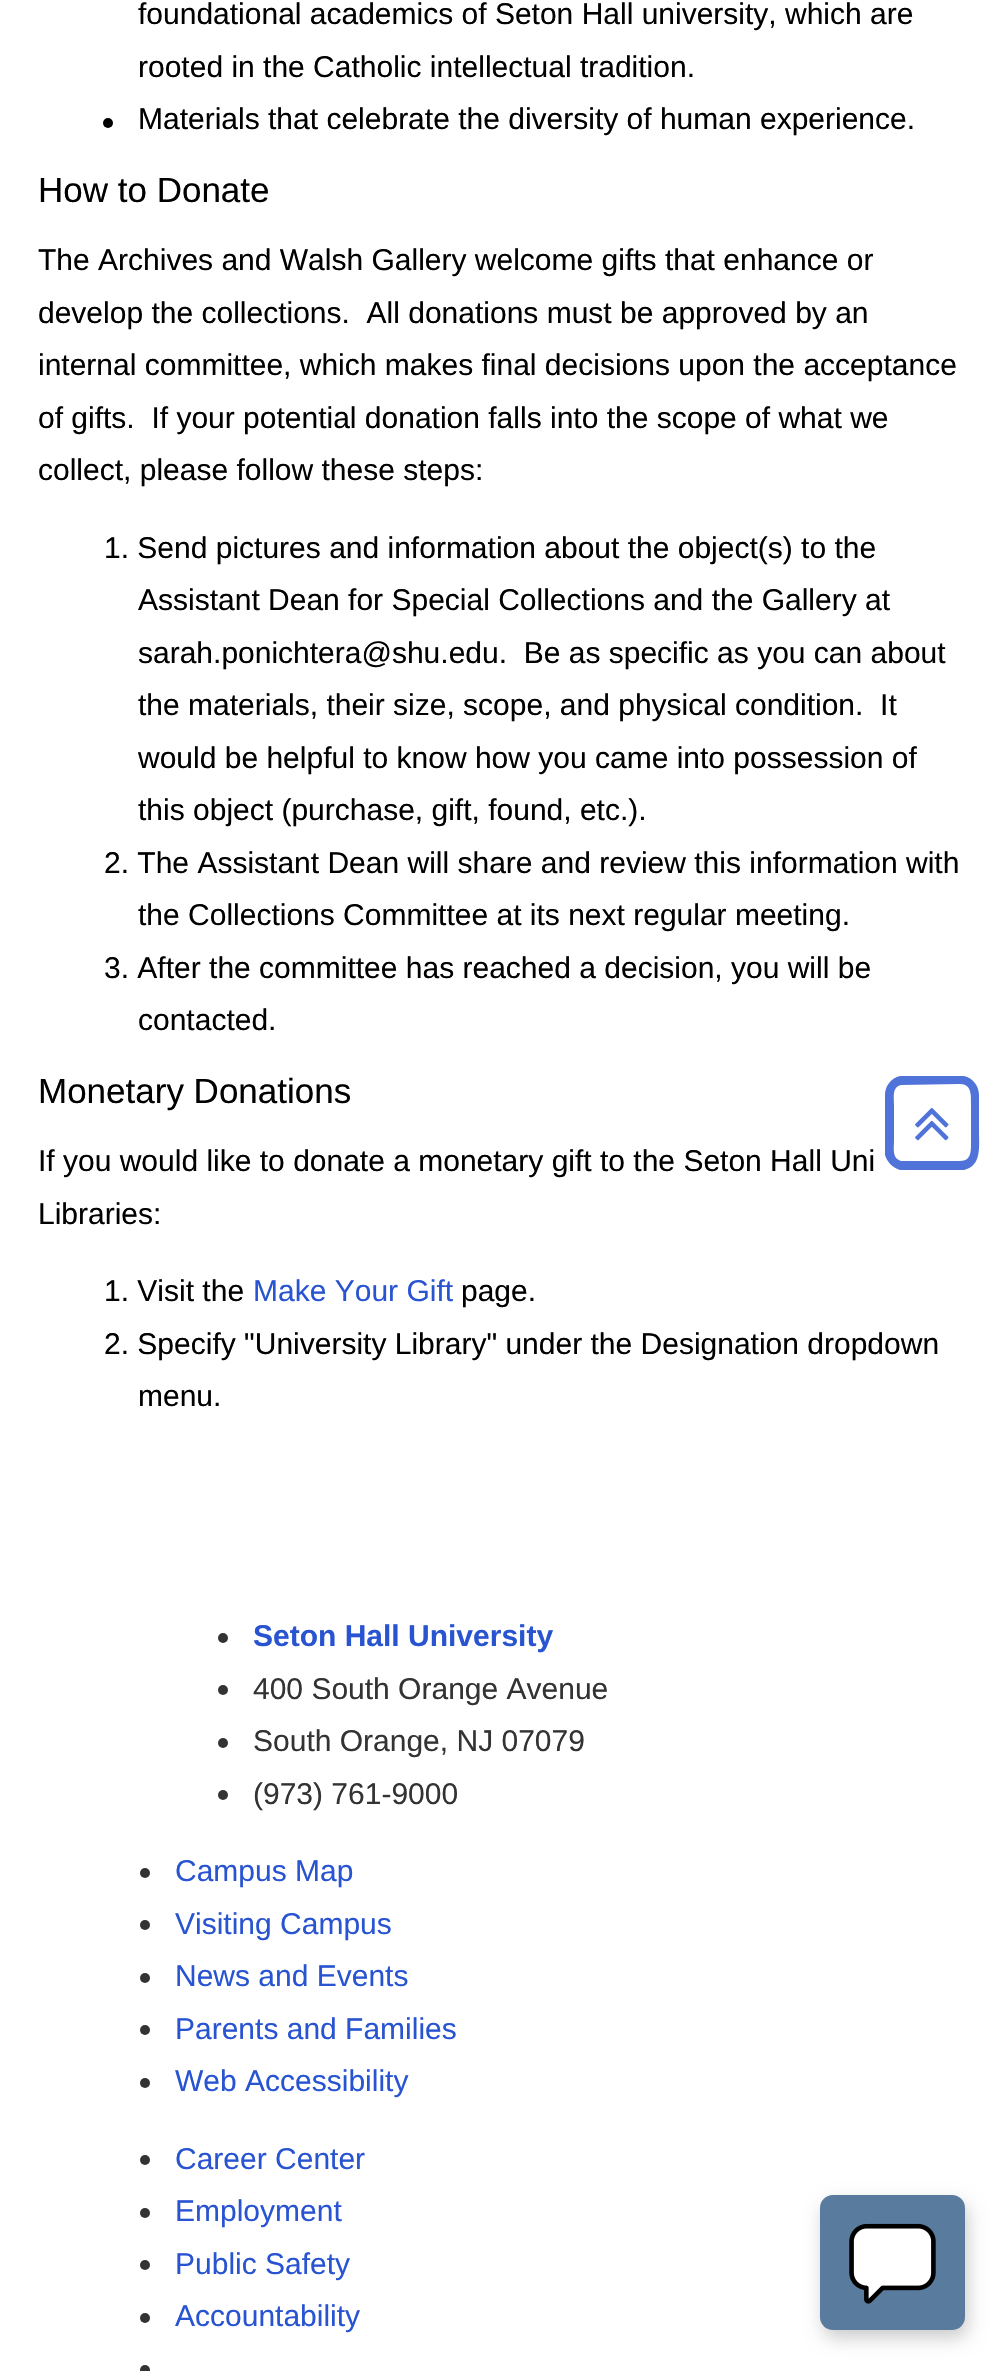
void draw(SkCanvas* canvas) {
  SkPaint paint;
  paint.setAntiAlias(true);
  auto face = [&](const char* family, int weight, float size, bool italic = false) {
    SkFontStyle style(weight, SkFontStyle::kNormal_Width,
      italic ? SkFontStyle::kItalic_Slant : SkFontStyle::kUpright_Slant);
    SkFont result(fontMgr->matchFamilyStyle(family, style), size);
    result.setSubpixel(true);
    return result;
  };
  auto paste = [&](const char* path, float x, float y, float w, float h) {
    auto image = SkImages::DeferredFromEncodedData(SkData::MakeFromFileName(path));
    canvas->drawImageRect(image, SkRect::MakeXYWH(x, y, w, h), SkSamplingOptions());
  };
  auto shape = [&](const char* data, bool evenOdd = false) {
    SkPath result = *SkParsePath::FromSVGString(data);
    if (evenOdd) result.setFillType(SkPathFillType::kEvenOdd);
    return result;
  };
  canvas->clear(0xffffffff);
  paint.setColor(0xff000000);
  canvas->drawCircle(108, 123, 5, paint);
  paint.setColor(0xd12954d1);
  canvas->drawPath(shape("M960 1084L901 1085C892 1087 894 1097 894 1104V1141C894 1149 892 1158 901 1161H960C972 1161 971 1150 971 1141V1104C971 1096 972 1084 960 1084ZM979 1095V1132C979 1146 982 1166 964 1170H914H900C893 1168 887 1162 885 1155V1095C885 1086 891 1078 900 1076H951H964C973 1078 979 1086 979 1095Z"), paint);
  paste("img/1.png", 915, 1108, 34, 33);
  paint.setColor(0xff333333);
  canvas->drawCircle(223, 1638, 5, paint);
  canvas->drawCircle(223, 1690, 5, paint);
  canvas->drawCircle(223, 1743, 5, paint);
  canvas->drawCircle(223, 1795, 5, paint);
  canvas->drawCircle(145, 1873, 5, paint);
  canvas->drawCircle(145, 1925, 5, paint);
  canvas->drawCircle(145, 1978, 5, paint);
  canvas->drawCircle(145, 2030, 5, paint);
  canvas->drawCircle(145, 2083, 5, paint);
  canvas->drawCircle(145, 2160, 5, paint);
  canvas->drawCircle(145, 2213, 5, paint);
  canvas->drawCircle(145, 2265, 5, paint);
  canvas->drawCircle(145, 2318, 5, paint);
  canvas->drawCircle(145, 2370, 5, paint);
  paint.setColor(0xffcccccc);
  paint.setMaskFilter(SkMaskFilter::MakeBlur(kNormal_SkBlurStyle, 9));
  canvas->drawRoundRect(SkRect::MakeXYWH(823, 2203, 145, 135), 13, 13, paint);
  paint.setMaskFilter(nullptr);
  paint.setColor(0xff597b9e);
  canvas->drawRoundRect(SkRect::MakeXYWH(820, 2195, 145, 135), 13, 13, paint);
  paste("img/2.png", 849, 2223, 87, 81);
  auto f0 = face("Liberation Sans", 400, 30);
  paint.setColor(0xff000000);
  {
    const struct { const char* s; float x, y; } items[] = {
      {"foundational academics of Seton Hall university, which are", 138, 24},
      {"rooted in the Catholic intellectual tradition.", 138, 77},
      {"Materials that celebrate the diversity of human experience.", 138, 129},
    };
    for (auto [s, x, y] : items) {
      canvas->drawString(s, x, y, f0, paint);
    }
  }
  auto f1 = face("Liberation Sans", 400, 35);
  canvas->drawString("How to Donate", 38, 202, f1, paint);
  {
    const struct { const char* s; float x, y; } items[] = {
      {"The Archives and Walsh Gallery welcome gifts that enhance or", 38, 270},
      {"develop the collections.  All donations must be approved by an", 38, 323},
      {"internal committee, which makes final decisions upon the acceptance", 38, 375},
      {"of gifts.  If your potential donation falls into the scope of what we", 38, 428},
      {"collect, please follow these steps:", 38, 480},
      {"1. Send pictures and information about the object(s) to the", 104, 558},
      {"Assistant Dean for Special Collections and the Gallery at", 138, 610},
      {"sarah.ponichtera@shu.edu.  Be as specific as you can about", 138, 663},
      {"the materials, their size, scope, and physical condition.  It", 138, 715},
      {"would be helpful to know how you came into possession of", 138, 768},
      {"this object (purchase, gift, found, etc.).", 138, 820},
      {"2. The Assistant Dean will share and review this information with", 104, 873},
      {"the Collections Committee at its next regular meeting.", 138, 925},
      {"3. After the committee has reached a decision, you will be", 104, 978},
      {"contacted.", 138, 1030},
    };
    for (auto [s, x, y] : items) {
      canvas->drawString(s, x, y, f0, paint);
    }
  }
  canvas->drawString("Monetary Donations", 38, 1103, f1, paint);
  {
    const struct { const char* s; float x, y; } items[] = {
      {"If you would like to donate a monetary gift to the Seton Hall Uni", 38, 1171},
      {"Libraries:", 38, 1224},
      {"1. Visit the", 104, 1301},
    };
    for (auto [s, x, y] : items) {
      canvas->drawString(s, x, y, f0, paint);
    }
  }
  paint.setColor(0xff2954d1);
  canvas->drawString("Make Your Gift", 253, 1301, f0, paint);
  paint.setColor(0xff000000);
  {
    const struct { const char* s; float x, y; } items[] = {
      {"page.", 461, 1301},
      {"2. Specify \"University Library\" under the Designation dropdown", 104, 1354},
      {"menu.", 138, 1406},
    };
    for (auto [s, x, y] : items) {
      canvas->drawString(s, x, y, f0, paint);
    }
  }
  auto f2 = face("Liberation Sans", 700, 30);
  paint.setColor(0xff2954d1);
  canvas->drawString("Seton Hall University", 253, 1646, f2, paint);
  paint.setColor(0xff333333);
  {
    const struct { const char* s; float x, y; } items[] = {
      {"400 South Orange Avenue", 253, 1699},
      {"South Orange, NJ 07079", 253, 1751},
      {"(973) 761-9000", 253, 1804},
    };
    for (auto [s, x, y] : items) {
      canvas->drawString(s, x, y, f0, paint);
    }
  }
  paint.setColor(0xff2954d1);
  {
    const struct { const char* s; float x, y; } items[] = {
      {"Campus Map", 175, 1881},
      {"Visiting Campus", 175, 1934},
      {"News and Events", 175, 1986},
      {"Parents and Families", 175, 2039},
      {"Web Accessibility", 175, 2091},
      {"Career Center", 175, 2169},
      {"Employment", 175, 2221},
      {"Public Safety", 175, 2274},
      {"Accountability", 175, 2326},
    };
    for (auto [s, x, y] : items) {
      canvas->drawString(s, x, y, f0, paint);
    }
  }
}
